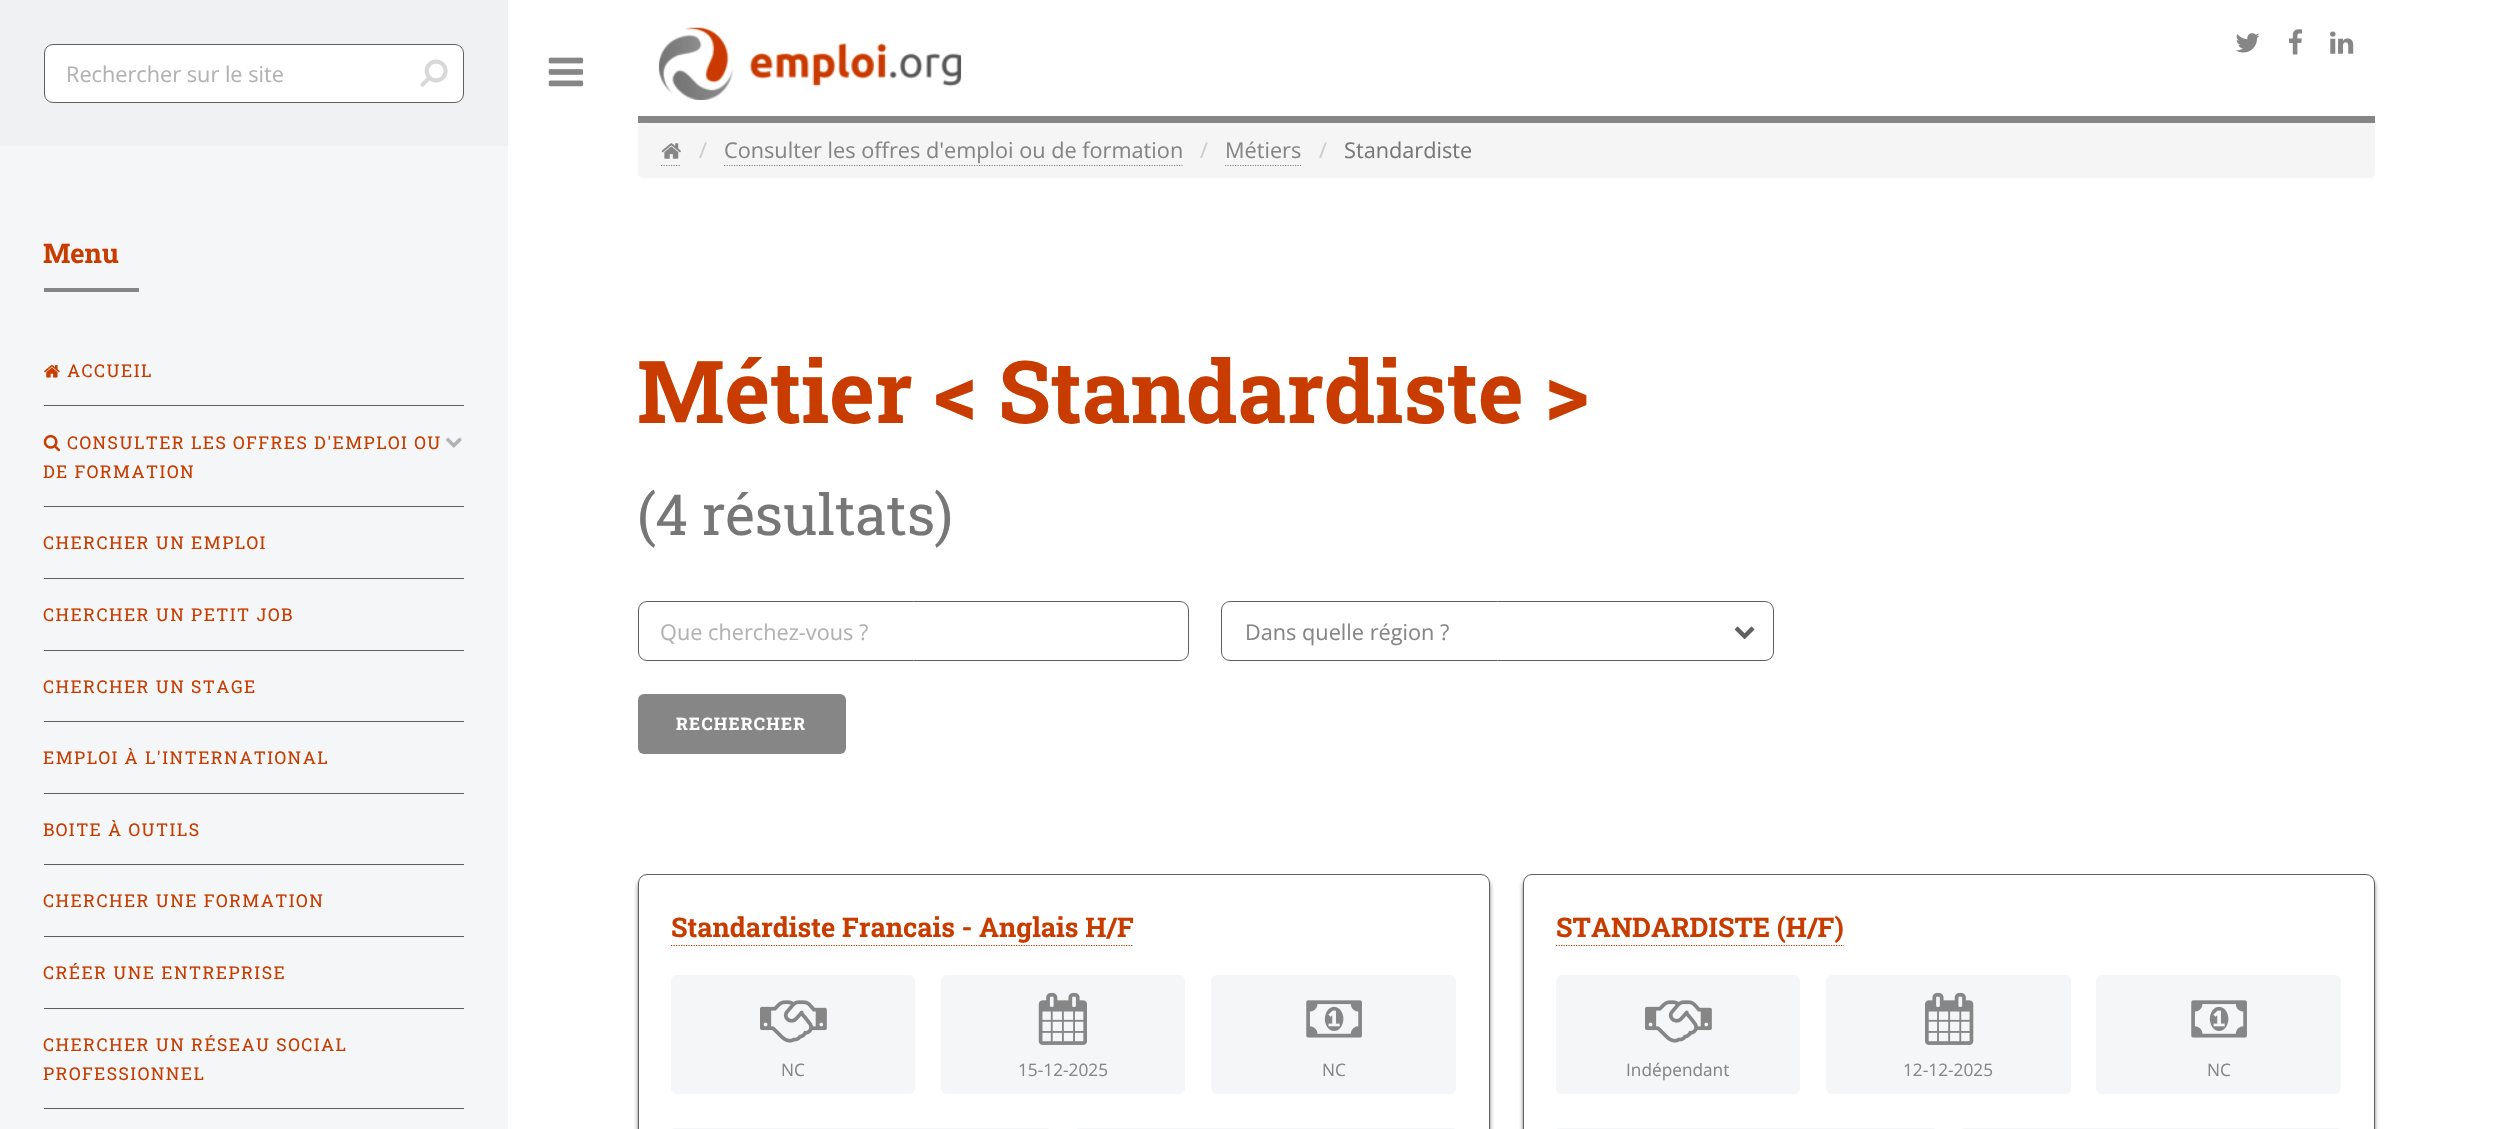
void draw(SkCanvas* canvas) {
  SkPaint paint;
  paint.setAntiAlias(true);
  auto face = [&](const char* family, int weight, float size, bool italic = false) {
    SkFontStyle style(weight, SkFontStyle::kNormal_Width,
      italic ? SkFontStyle::kItalic_Slant : SkFontStyle::kUpright_Slant);
    SkFont result(fontMgr->matchFamilyStyle(family, style), size);
    result.setSubpixel(true);
    return result;
  };
  auto writeSpaced = [&](const char* s, float x, float y, const SkFont& font, const SkPaint& ink, float letter, float word) {
    std::vector<SkGlyphID> glyphs(font.countText(s, strlen(s), SkTextEncoding::kUTF8));
    std::vector<float> xs(glyphs.size());
    font.textToGlyphs(s, strlen(s), SkTextEncoding::kUTF8, glyphs);
    font.getXPos(glyphs, xs, x);
    float extra = 0;
    for (size_t i = 0; i < glyphs.size(); i++) {
      xs[i] += extra;
      extra += letter + word * (glyphs[i] == font.unicharToGlyph(' '));
    }
    canvas->drawTextBlob(SkTextBlob::MakeFromPosHGlyphs(glyphs, xs, y, font), 0, 0, ink);
  };
  auto paste = [&](const char* path, float x, float y, float w, float h) {
    auto image = SkImages::DeferredFromEncodedData(SkData::MakeFromFileName(path));
    canvas->drawImageRect(image, SkRect::MakeXYWH(x, y, w, h), SkSamplingOptions());
  };
  auto shape = [&](const char* data, bool evenOdd = false) {
    SkPath result = *SkParsePath::FromSVGString(data);
    if (evenOdd) result.setFillType(SkPathFillType::kEvenOdd);
    return result;
  };
  canvas->clear(0xffffffff);
  paint.setColor(0xfff5f6f7);
  canvas->drawRect(SkRect::MakeXYWH(0, 146, 508, 983), paint);
  paint.setColor(0xffeff1f2);
  canvas->drawRect(SkRect::MakeXYWH(0, 0, 508, 146), paint);
  paint.setColor(0xffffffff);
  canvas->drawRoundRect(SkRect::MakeXYWH(44, 44, 420, 59), 9, 9, paint);
  paint.setStroke(true);
  paint.setStrokeWidth(1);
  paint.setColor(0xbf2b2b2b);
  canvas->drawRoundRect(SkRect::MakeXYWH(44.5f, 44.5f, 419, 58), 8.5f, 8.5f, paint);
  paste("img/1.png", 420, 59, 28, 28);
  paint.setStroke(false);
  paint.setColor(0xff868686);
  canvas->drawRect(SkRect::MakeXYWH(44, 288, 95, 4), paint);
  paste("img/2.png", 44, 364, 16, 14);
  paint.setColor(0xff5e5e5e);
  canvas->drawRect(SkRect::MakeXYWH(44, 405, 420, 1), paint);
  paste("img/3.png", 43, 435, 17, 17);
  paste("img/4.png", 446, 437, 16, 11);
  {
    const struct { float x, y, w, h; SkColor color; } items[] = {
      {44, 506, 420, 1, 0xff5e5e5e},
      {44, 578, 420, 1, 0xff5e5e5e},
      {44, 650, 420, 1, 0xff5e5e5e},
      {44, 721, 420, 1, 0xff5e5e5e},
      {44, 793, 420, 1, 0xff5e5e5e},
      {44, 864, 420, 1, 0xff5e5e5e},
      {44, 936, 420, 1, 0xff5e5e5e},
      {44, 1008, 420, 1, 0xff5e5e5e},
      {44, 1108, 420, 1, 0xff5e5e5e},
    };
    for (auto [x, y, w, h, color] : items) {
      paint.setColor(color);
      canvas->drawRect(SkRect::MakeXYWH(x, y, w, h), paint);
    }
  }
  paste("img/5.png", 548, 57, 36, 30);
  paint.setColor(0xff868686);
  canvas->drawRect(SkRect::MakeXYWH(638, 116, 1737, 7), paint);
  paste("img/6.png", 658, 27, 304, 73);
  paste("img/7.png", 2236, 33, 24, 20);
  paste("img/8.png", 2288, 29, 14, 26);
  paste("img/9.png", 2330, 31, 24, 23);
  paint.setColor(0xfff5f5f5);
  canvas->drawRoundRect(SkRect::MakeXYWH(638, 123, 1737, 55), 5, 5, paint);
  paint.setStroke(true);
  paint.setStrokeWidth(1.2f);
  paint.setColor(0xff868686);
  paint.setPathEffect(SkDashPathEffect::Make({{1.25f, 1.25f}}, 0));
  canvas->drawPath(shape("M661 165.5H681"), paint);
  paint.setPathEffect(nullptr);
  paste("img/10.png", 661, 143, 20, 16);
  paint.setPathEffect(SkDashPathEffect::Make({{1.25f, 1.25f}}, 0));
  canvas->drawPath(shape("M724 165.5H1182.5"), paint);
  paint.setPathEffect(nullptr);
  paint.setPathEffect(SkDashPathEffect::Make({{1.25f, 1.25f}}, 0));
  canvas->drawPath(shape("M1225 165.5H1301"), paint);
  paint.setPathEffect(nullptr);
  paint.setStrokeWidth(1);
  paint.setColor(0xff606060);
  canvas->drawRoundRect(SkRect::MakeXYWH(638.5f, 601.5f, 550, 59), 8.5f, 8.5f, paint);
  canvas->drawRoundRect(SkRect::MakeXYWH(1221.5f, 601.5f, 552, 59), 8.5f, 8.5f, paint);
  paste("img/11.png", 1734, 626, 21, 14);
  paint.setStroke(false);
  paint.setColor(0xff868686);
  canvas->drawRoundRect(SkRect::MakeXYWH(638, 694, 208, 60), 6, 6, paint);
  canvas->save();
  canvas->clipPath(shape("M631 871H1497V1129H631ZM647 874H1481C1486 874 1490 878 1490 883V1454C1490 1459 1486 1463 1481 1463H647C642 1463 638 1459 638 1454V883C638 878 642 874 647 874Z", true), true);
  paint.setColor(0xff808080);
  paint.setMaskFilter(SkMaskFilter::MakeBlur(kNormal_SkBlurStyle, 2));
  canvas->drawRoundRect(SkRect::MakeXYWH(638, 878, 852, 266), 9, 9, paint);
  paint.setMaskFilter(nullptr);
  canvas->restore();
  paint.setStroke(true);
  paint.setColor(0xbf2b2b2b);
  canvas->drawRoundRect(SkRect::MakeXYWH(638.5f, 874.5f, 851, 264), 8.5f, 8.5f, paint);
  paint.setStrokeWidth(1.2f);
  paint.setColor(0xffc83c00);
  paint.setPathEffect(SkDashPathEffect::Make({{1.25f, 1.25f}}, 0));
  canvas->drawPath(shape("M671 945.5H1132.5"), paint);
  paint.setPathEffect(nullptr);
  paint.setStroke(false);
  paint.setColor(0xfff5f6f7);
  canvas->drawRoundRect(SkRect::MakeXYWH(671, 975, 244, 119), 6, 6, paint);
  paste("img/12.png", 760, 1000, 67, 43);
  canvas->drawRoundRect(SkRect::MakeXYWH(941, 975, 244, 119), 6, 6, paint);
  paste("img/13.png", 1038, 992, 49, 53);
  canvas->drawRoundRect(SkRect::MakeXYWH(1211, 975, 245, 119), 6, 6, paint);
  paste("img/14.png", 1306, 1000, 56, 38);
  canvas->drawRoundRect(SkRect::MakeXYWH(671, 1128, 379, 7), 6, 6, paint);
  canvas->drawRoundRect(SkRect::MakeXYWH(1076, 1128, 380, 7), 6, 6, paint);
  canvas->save();
  canvas->clipPath(shape("M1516 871H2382V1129H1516ZM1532 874H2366C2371 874 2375 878 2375 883V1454C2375 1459 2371 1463 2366 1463H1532C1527 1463 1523 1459 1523 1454V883C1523 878 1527 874 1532 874Z", true), true);
  paint.setColor(0xff808080);
  paint.setMaskFilter(SkMaskFilter::MakeBlur(kNormal_SkBlurStyle, 2));
  canvas->drawRoundRect(SkRect::MakeXYWH(1523, 878, 852, 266), 9, 9, paint);
  paint.setMaskFilter(nullptr);
  canvas->restore();
  paint.setStroke(true);
  paint.setStrokeWidth(1);
  paint.setColor(0xbf2b2b2b);
  canvas->drawRoundRect(SkRect::MakeXYWH(1523.5f, 874.5f, 851, 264), 8.5f, 8.5f, paint);
  paint.setStrokeWidth(1.2f);
  paint.setColor(0xffc83c00);
  paint.setPathEffect(SkDashPathEffect::Make({{1.25f, 1.25f}}, 0));
  canvas->drawPath(shape("M1556 945.5H1844"), paint);
  paint.setPathEffect(nullptr);
  paint.setStroke(false);
  paint.setColor(0xfff5f6f7);
  canvas->drawRoundRect(SkRect::MakeXYWH(1556, 975, 244, 119), 6, 6, paint);
  paste("img/12.png", 1645, 1000, 67, 43);
  canvas->drawRoundRect(SkRect::MakeXYWH(1826, 975, 245, 119), 6, 6, paint);
  paste("img/15.png", 1925, 992, 49, 53);
  canvas->drawRoundRect(SkRect::MakeXYWH(2096, 975, 245, 119), 6, 6, paint);
  paste("img/14.png", 2191, 1000, 56, 38);
  canvas->drawRoundRect(SkRect::MakeXYWH(1556, 1128, 380, 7), 6, 6, paint);
  canvas->drawRoundRect(SkRect::MakeXYWH(1961, 1128, 380, 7), 6, 6, paint);
  auto f0 = face("Open Sans", 400, 21.7f);
  paint.setColor(0xffb2b2b2);
  canvas->drawString("Rechercher sur le site", 66, 82, f0, paint);
  auto f1 = face("Roboto Slab", 700, 27.1f);
  paint.setColor(0xffc83c00);
  canvas->drawString("Menu", 43, 263, f1, paint);
  auto f2 = face("Roboto Slab", 400, 17.55f);
  {
    const struct { const char* s; float x, y; } items[] = {
      {"ACCUEIL", 67, 377},
      {"CONSULTER LES OFFRES D'EMPLOI OU", 67, 449},
      {"DE FORMATION", 43, 478},
      {"CHERCHER UN EMPLOI", 43, 549},
      {"CHERCHER UN PETIT JOB", 43, 621},
      {"CHERCHER UN STAGE", 43, 693},
      {"EMPLOI À L'INTERNATIONAL", 43, 764},
      {"BOITE À OUTILS", 43, 836},
      {"CHERCHER UNE FORMATION", 43, 907},
      {"CRÉER UNE ENTREPRISE", 43, 979},
      {"CHERCHER UN RÉSEAU SOCIAL", 43, 1051},
      {"PROFESSIONNEL", 43, 1080},
    };
    for (auto [s, x, y] : items) {
      writeSpaced(s, x, y, f2, paint, 1.45f, 0);
    }
  }
  paint.setColor(0xffcccccc);
  canvas->drawString("/", 699, 158, f0, paint);
  paint.setColor(0xff868686);
  canvas->drawString("Consulter les offres d'emploi ou de formation", 724, 158, f0, paint);
  paint.setColor(0xffcccccc);
  canvas->drawString("/", 1200, 158, f0, paint);
  paint.setColor(0xff868686);
  canvas->drawString("Métiers", 1225, 158, f0, paint);
  paint.setColor(0xffcccccc);
  canvas->drawString("/", 1319, 158, f0, paint);
  paint.setColor(0xff777777);
  canvas->drawString("Standardiste", 1344, 158, f0, paint);
  auto f3 = face("Roboto Slab", 700, 86.75f);
  paint.setColor(0xffc83c00);
  canvas->drawString("Métier < Standardiste >", 637, 423, f3, paint);
  auto f4 = face("Roboto Slab", 400, 56.5f);
  paint.setColor(0xff777777);
  canvas->drawString("(4 résultats)", 637, 535, f4, paint);
  paint.setColor(0xffb2b2b2);
  canvas->drawString("Que cherchez-vous ?", 660, 640, f0, paint);
  paint.setColor(0xff868686);
  canvas->drawString("Dans quelle région ?", 1245, 640, f0, paint);
  auto f5 = face("Roboto Slab", 700, 17.25f);
  paint.setColor(0xffffffff);
  writeSpaced("RECHERCHER", 676, 730, f5, paint, 1.25f, 0);
  paint.setColor(0xffc83c00);
  canvas->drawString("Standardiste Francais - Anglais H/F", 671, 937, f1, paint);
  auto f6 = face("Open Sans", 400, 17.25f);
  paint.setColor(0xff868686);
  {
    const struct { const char* s; float x, y; } items[] = {
      {"NC", 781, 1076},
      {"15-12-2025", 1018, 1076},
      {"NC", 1322, 1076},
    };
    for (auto [s, x, y] : items) {
      canvas->drawString(s, x, y, f6, paint);
    }
  }
  paint.setColor(0xffc83c00);
  canvas->drawString("STANDARDISTE (H/F)", 1556, 937, f1, paint);
  paint.setColor(0xff868686);
  {
    const struct { const char* s; float x, y; } items[] = {
      {"Indépendant", 1626, 1076},
      {"12-12-2025", 1903, 1076},
      {"NC", 2207, 1076},
    };
    for (auto [s, x, y] : items) {
      canvas->drawString(s, x, y, f6, paint);
    }
  }
}
